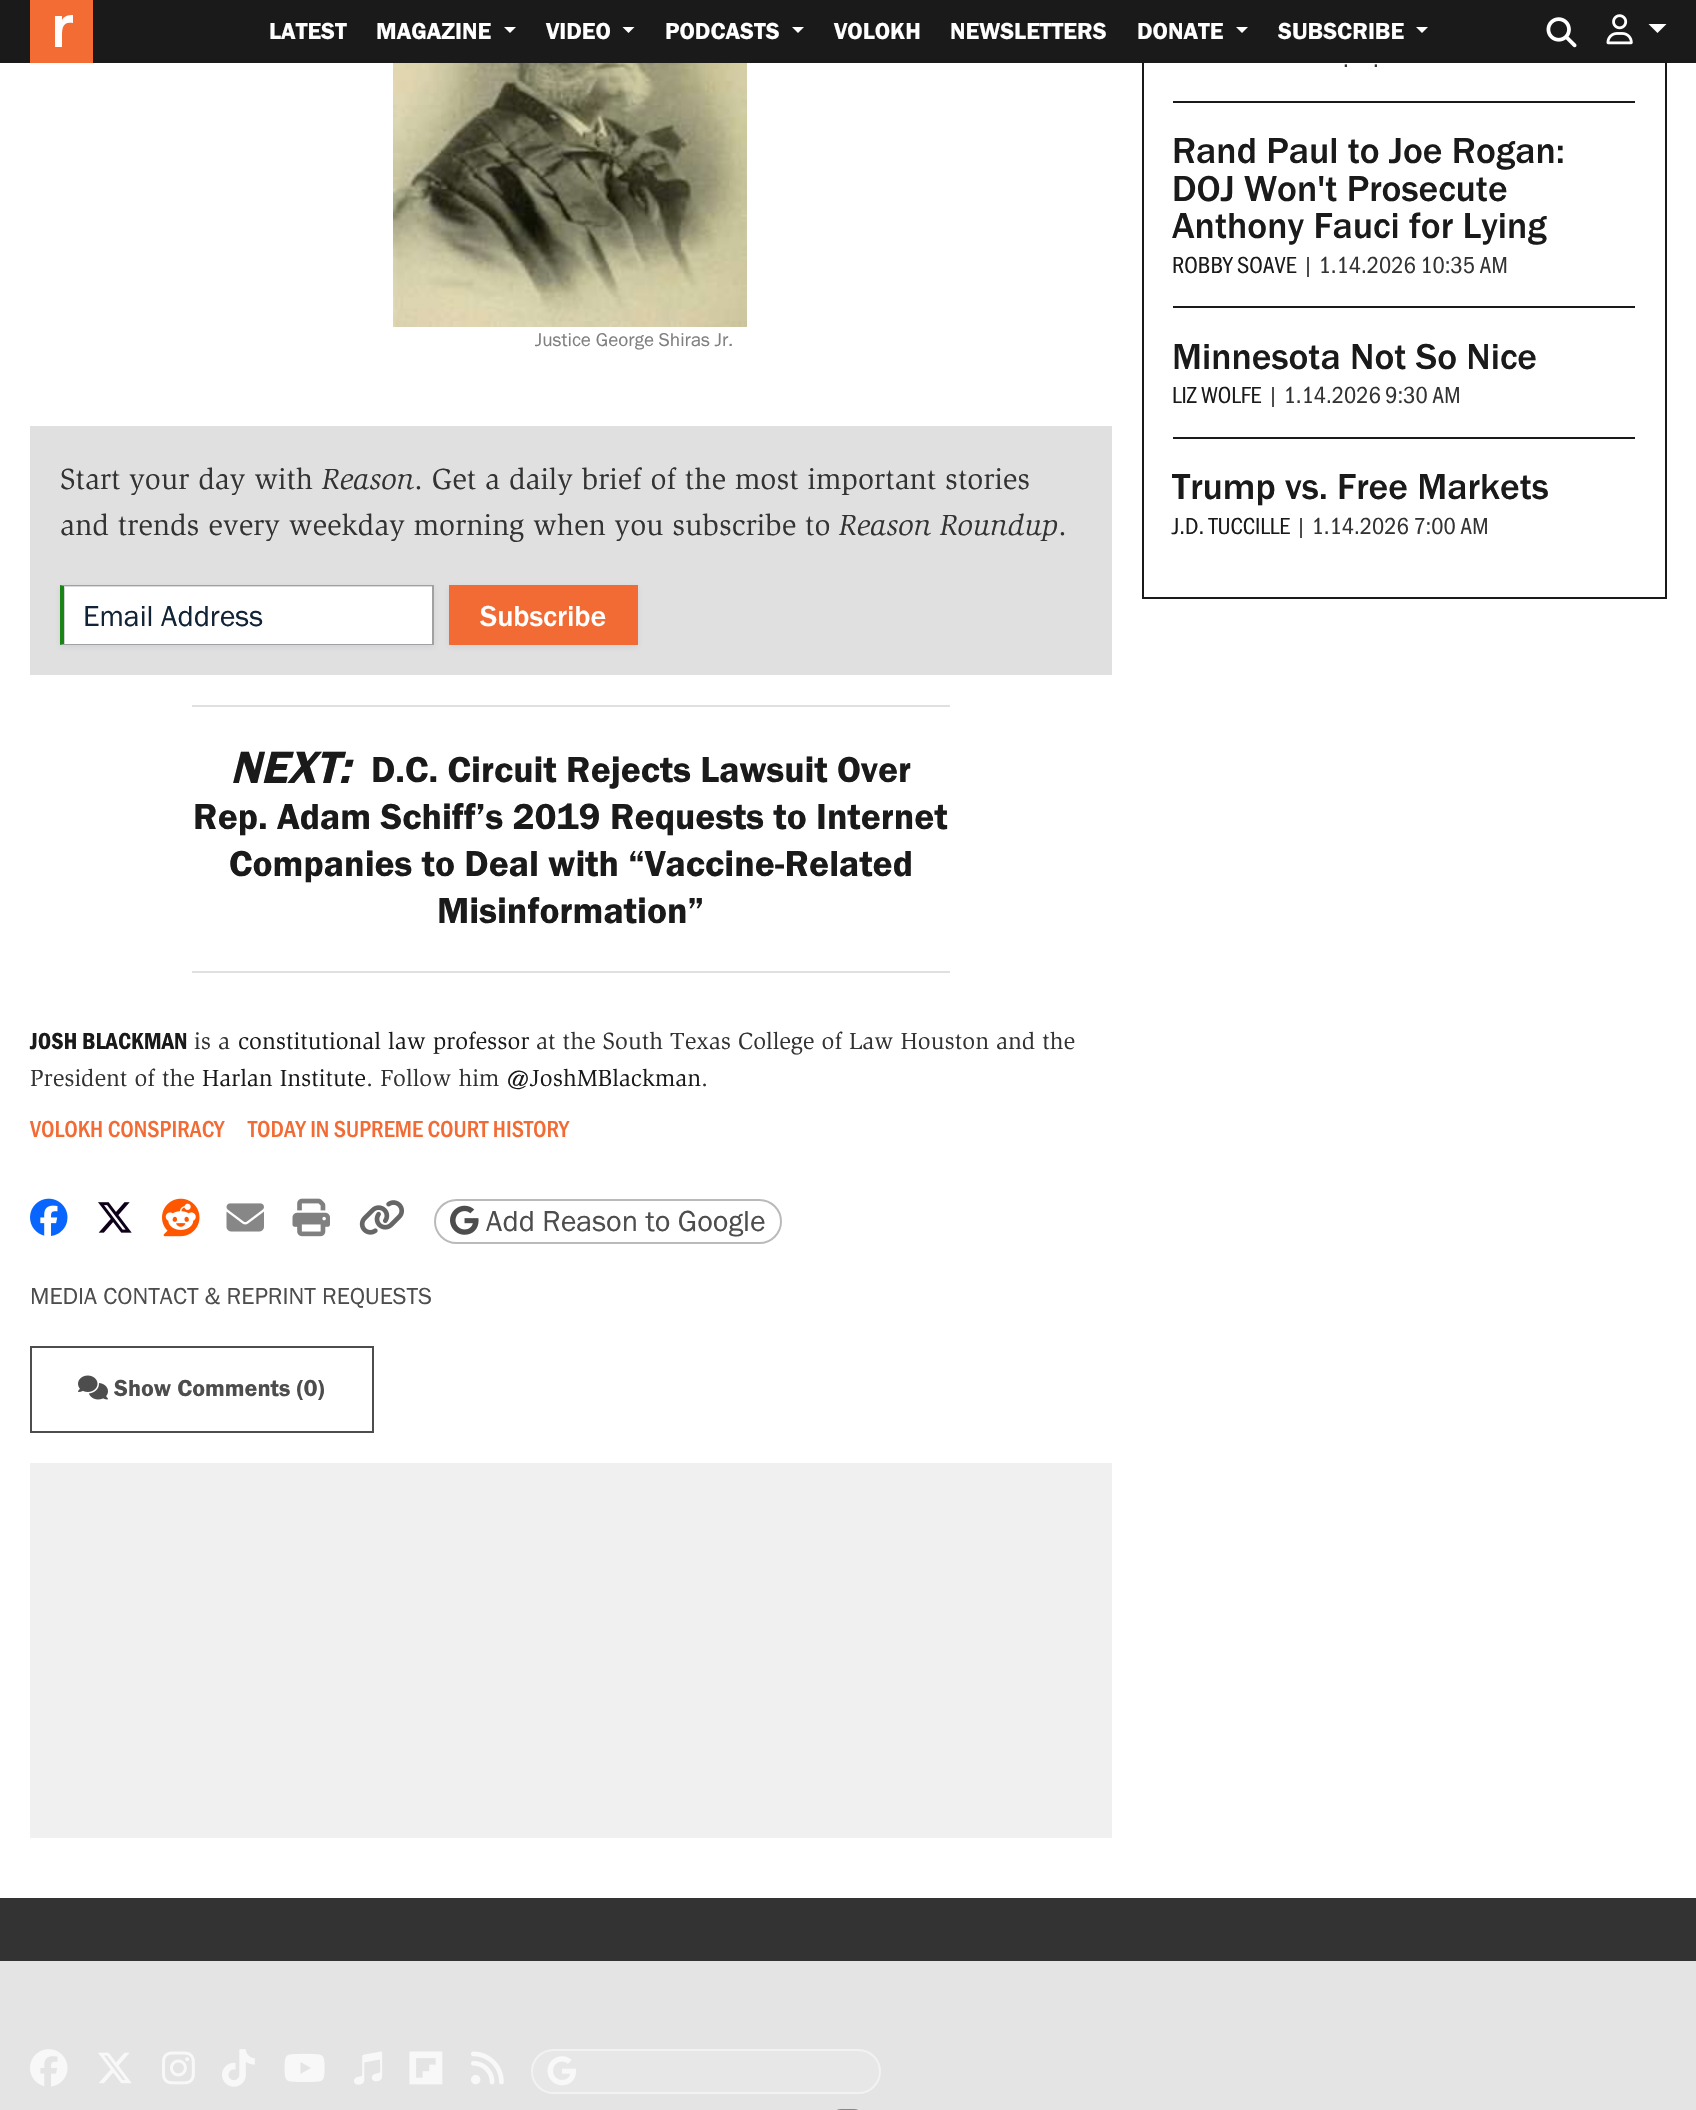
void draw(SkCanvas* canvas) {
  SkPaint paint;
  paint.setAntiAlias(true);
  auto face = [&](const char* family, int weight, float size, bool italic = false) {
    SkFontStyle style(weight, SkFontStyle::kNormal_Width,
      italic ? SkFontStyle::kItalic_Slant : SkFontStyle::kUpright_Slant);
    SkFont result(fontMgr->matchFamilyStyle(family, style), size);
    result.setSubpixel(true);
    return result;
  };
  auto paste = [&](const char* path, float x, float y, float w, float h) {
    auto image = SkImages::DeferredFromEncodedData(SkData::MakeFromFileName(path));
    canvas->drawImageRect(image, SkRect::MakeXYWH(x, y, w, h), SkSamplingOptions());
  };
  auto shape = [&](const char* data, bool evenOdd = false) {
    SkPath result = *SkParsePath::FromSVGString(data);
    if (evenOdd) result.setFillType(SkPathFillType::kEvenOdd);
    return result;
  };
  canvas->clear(0xffffffff);
  paint.setStroke(true);
  paint.setStrokeWidth(2);
  paint.setColor(0xff1a1a1a);
  canvas->drawRect(SkRect::MakeXYWH(1143, -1, 523, 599), paint);
  paint.setStroke(false);
  canvas->drawRect(SkRect::MakeXYWH(0, 0, 1696, 63), paint);
  paint.setColor(0xffffffff);
  canvas->drawRect(SkRect::MakeXYWH(55, 15, 18, 32), paint);
  canvas->save();
  canvas->clipRect(SkRect::MakeXYWH(30, 0, 63, 63));
  paint.setColor(0xfff36c34);
  canvas->drawPath(shape("M30 0V64H94V0ZM73 23C62 21 62 29 62 37V47H55V16H62V20C64 16 68 15 73 15Z"), paint);
  canvas->restore();
  paint.setColor(0xffffffff);
  canvas->drawPath(shape("M504 27H516L510 33Z"), paint);
  canvas->drawPath(shape("M622.5 27H634.5L628.5 33Z"), paint);
  canvas->drawPath(shape("M792 27H804L798 33Z"), paint);
  canvas->drawPath(shape("M1236 27H1248L1242 33Z"), paint);
  canvas->drawPath(shape("M1416 27H1428L1422 33Z"), paint);
  paste("img/1.png", 1546, 17, 31, 31);
  paste("img/2.png", 1606, 14, 27, 31);
  canvas->drawPath(shape("M1648.5 24H1666.5L1657.5 33Z"), paint);
  paste("img/3.png", 393, 63, 354, 264);
  paint.setColor(0xffe0e0e0);
  canvas->drawRect(SkRect::MakeXYWH(30, 426, 1082, 249), paint);
  paint.setColor(0x14121961);
  paint.setMaskFilter(SkMaskFilter::MakeBlur(kNormal_SkBlurStyle, 3));
  canvas->drawRect(SkRect::MakeXYWH(60, 587, 374, 60), paint);
  paint.setMaskFilter(nullptr);
  paint.setColor(0xffffffff);
  canvas->drawRect(SkRect::MakeXYWH(65, 587, 367, 57), paint);
  paint.setColor(0xffa1a1a1);
  canvas->drawPath(shape("M60 585H434L432 586H64Z"), paint);
  canvas->drawRect(SkRect::MakeXYWH(432, 585, 2, 60), paint);
  canvas->drawPath(shape("M434 645H60L64 644H432Z"), paint);
  paint.setColor(0xff1a8419);
  canvas->drawPath(shape("M60 645V585L64 586V644Z"), paint);
  paint.setColor(0x14121961);
  paint.setMaskFilter(SkMaskFilter::MakeBlur(kNormal_SkBlurStyle, 3));
  canvas->drawRect(SkRect::MakeXYWH(449, 587, 189, 60), paint);
  paint.setMaskFilter(nullptr);
  {
    const struct { float x, y, w, h; SkColor color; } items[] = {
      {449, 585, 189, 60, 0xfff36b34},
      {192, 705, 758, 2, 0xffe0e0e0},
      {192, 971, 758, 2, 0xffe0e0e0},
    };
    for (auto [x, y, w, h, color] : items) {
      paint.setColor(color);
      canvas->drawRect(SkRect::MakeXYWH(x, y, w, h), paint);
    }
  }
  paste("img/4.png", 30, 1198, 38, 38);
  paste("img/5.png", 98, 1202, 34, 31);
  paste("img/6.png", 162, 1198, 38, 39);
  paste("img/7.png", 226, 1203, 38, 29);
  paste("img/8.png", 292, 1198, 38, 39);
  paste("img/9.png", 359, 1200, 46, 35);
  paint.setStroke(true);
  paint.setColor(0xffbababa);
  canvas->drawRoundRect(SkRect::MakeXYWH(435, 1200, 346, 43), 21.5f, 21.5f, paint);
  paste("img/10.png", 450, 1205, 29, 30);
  paint.setColor(0xff4d4d4d);
  canvas->drawRect(SkRect::MakeXYWH(31, 1347, 342, 85), paint);
  paste("img/11.png", 78, 1375, 30, 25);
  paint.setStroke(false);
  {
    const struct { float x, y, w, h; SkColor color; } items[] = {
      {1173, 101, 462, 2, 0xff1a1a1a},
      {1173, 306, 462, 2, 0xff1a1a1a},
      {1173, 437, 462, 2, 0xff1a1a1a},
      {30, 1463, 1082, 375, 0xfff0f0f0},
      {0, 1898, 1696, 212, 0xff333333},
    };
    for (auto [x, y, w, h, color] : items) {
      paint.setColor(color);
      canvas->drawRect(SkRect::MakeXYWH(x, y, w, h), paint);
    }
  }
  paste("img/12.png", 30, 2049, 38, 38);
  paste("img/13.png", 98, 2052, 34, 32);
  paste("img/14.png", 162, 2051, 33, 34);
  paste("img/15.png", 222, 2049, 33, 38);
  paste("img/16.png", 284, 2053, 41, 29);
  paste("img/17.png", 354, 2051, 29, 34);
  paste("img/18.png", 409, 2051, 34, 34);
  paste("img/19.png", 471, 2051, 33, 34);
  paint.setColor(0xff4d4d4d);
  canvas->drawRoundRect(SkRect::MakeXYWH(532, 2050, 348, 43), 21.5f, 21.5f, paint);
  paint.setStroke(true);
  paint.setColor(0xffbababa);
  canvas->drawRoundRect(SkRect::MakeXYWH(532, 2050, 348, 43), 21.5f, 21.5f, paint);
  paste("img/20.png", 547, 2056, 30, 30);
  paint.setStroke(false);
  paint.setColor(0xe6f7f7f7);
  canvas->drawRect(SkRect::MakeXYWH(0, 1961, 1696, 149), paint);
  paint.setStroke(true);
  paint.setColor(0xfff2f2f2);
  canvas->drawRoundRect(SkRect::MakeXYWH(832, 2110, 31, 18), 15.5f, 15.5f, paint);
  paint.setColor(0xff888888);
  canvas->drawRoundRect(SkRect::MakeXYWH(832, 2110, 31, 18), 15.5f, 15.5f, paint);
  auto f0 = face("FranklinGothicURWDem", 400, 24);
  paint.setStroke(false);
  paint.setColor(0xffffffff);
  {
    const struct { const char* s; float x, y; } items[] = {
      {"LATEST", 269, 39},
      {"MAGAZINE", 376, 39},
      {"VIDEO", 546, 39},
      {"PODCASTS", 665, 39},
      {"VOLOKH", 834, 39},
      {"NEWSLETTERS", 950, 39},
      {"DONATE", 1137, 39},
      {"SUBSCRIBE", 1278, 39},
    };
    for (auto [s, x, y] : items) {
      canvas->drawString(s, x, y, f0, paint);
    }
  }
  auto f1 = face("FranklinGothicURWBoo", 400, 19.25f);
  paint.setColor(0xff808080);
  canvas->drawString("Justice George Shiras Jr.", 535, 346, f1, paint);
  auto f2 = face("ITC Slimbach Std", 400, 30);
  paint.setColor(0xff333333);
  canvas->drawString("Start your day with", 60, 489, f2, paint);
  auto f3 = face("ITC Slimbach Std", 400, 30, true);
  canvas->drawString("Reason", 322, 489, f3, paint);
  canvas->drawString(". Get a daily brief of the most important stories", 414, 489, f2, paint);
  canvas->drawString("and trends every weekday morning when you subscribe to", 60, 535, f2, paint);
  canvas->drawString("Reason Roundup", 839, 535, f3, paint);
  canvas->drawString(".", 1058, 535, f2, paint);
  auto f4 = face("FranklinGothicURWBoo", 400, 30);
  paint.setColor(0xff112337);
  canvas->drawString("Email Address", 83, 626, f4, paint);
  auto f5 = face("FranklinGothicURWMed", 400, 30);
  paint.setColor(0xffffffff);
  canvas->drawString("Subscribe", 480, 626, f5, paint);
  auto f6 = face("FranklinGothicURWDem", 400, 47, true);
  paint.setColor(0xff1a1a1a);
  canvas->drawString("NEXT:", 230, 783, f6, paint);
  auto f7 = face("FranklinGothicURWDem", 400, 37.5f);
  {
    const struct { const char* s; float x, y; } items[] = {
      {"D.C. Circuit Rejects Lawsuit Over", 371, 782},
      {"Rep. Adam Schiff’s 2019 Requests to Internet", 193, 829},
      {"Companies to Deal with “Vaccine-Related", 229, 876},
      {"Misinformation”", 437, 923},
    };
    for (auto [s, x, y] : items) {
      canvas->drawString(s, x, y, f7, paint);
    }
  }
  auto f8 = face("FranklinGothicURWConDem", 400, 24);
  canvas->drawString("JOSH BLACKMAN", 30, 1049, f8, paint);
  auto f9 = face("ITC Slimbach Std", 400, 24);
  paint.setColor(0xff333333);
  canvas->drawString("is a", 194, 1049, f9, paint);
  paint.setColor(0xff1a1a1a);
  canvas->drawString("constitutional law professor", 238, 1049, f9, paint);
  paint.setColor(0xff333333);
  canvas->drawString("at the South Texas College of Law Houston and the", 536, 1049, f9, paint);
  canvas->drawString("President of the", 30, 1086, f9, paint);
  paint.setColor(0xff1a1a1a);
  canvas->drawString("Harlan Institute", 202, 1086, f9, paint);
  paint.setColor(0xff333333);
  canvas->drawString(". Follow him", 366, 1086, f9, paint);
  paint.setColor(0xff1a1a1a);
  canvas->drawString("@JoshMBlackman", 506, 1086, f9, paint);
  paint.setColor(0xff333333);
  canvas->drawString(".", 701, 1086, f9, paint);
  auto f10 = face("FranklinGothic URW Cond", 500, 24);
  paint.setColor(0xfff36b34);
  canvas->drawString("VOLOKH CONSPIRACY", 30, 1137, f10, paint);
  canvas->drawString("TODAY IN SUPREME COURT HISTORY", 248, 1137, f10, paint);
  paint.setColor(0xff4d4d4d);
  canvas->drawString("Add Reason to Google", 486, 1231, f4, paint);
  auto f11 = face("FranklinGothicURWBoo", 400, 24);
  canvas->drawString("MEDIA CONTACT & REPRINT REQUESTS", 30, 1304, f11, paint);
  canvas->drawString("Show Comments (0)", 114, 1396, f0, paint);
  auto f12 = face("FranklinGothic URW Cond", 400, 24);
  paint.setColor(0xff333333);
  canvas->drawString(".", 1343, 67, f12, paint);
  canvas->drawString(".", 1373, 67, f12, paint);
  auto f13 = face("FranklinGothicURWMed", 400, 37.5f);
  paint.setColor(0xff1a1a1a);
  {
    const struct { const char* s; float x, y; } items[] = {
      {"Rand Paul to Joe Rogan:", 1172, 163},
      {"DOJ Won't Prosecute", 1172, 201},
      {"Anthony Fauci for Lying", 1172, 238},
    };
    for (auto [s, x, y] : items) {
      canvas->drawString(s, x, y, f13, paint);
    }
  }
  canvas->drawString("ROBBY SOAVE", 1172, 273, f12, paint);
  paint.setColor(0xff333333);
  canvas->drawString("| 1.14.2026 10:35 AM", 1302, 273, f12, paint);
  paint.setColor(0xff1a1a1a);
  canvas->drawString("Minnesota Not So Nice", 1172, 369, f13, paint);
  canvas->drawString("LIZ WOLFE", 1172, 403, f12, paint);
  paint.setColor(0xff333333);
  canvas->drawString("| 1.14.2026 9:30 AM", 1267, 403, f12, paint);
  paint.setColor(0xff1a1a1a);
  canvas->drawString("Trump vs. Free Markets", 1172, 499, f13, paint);
  canvas->drawString("J.D. TUCCILLE", 1172, 534, f12, paint);
  paint.setColor(0xff333333);
  canvas->drawString("| 1.14.2026 7:00 AM", 1295, 534, f12, paint);
}
